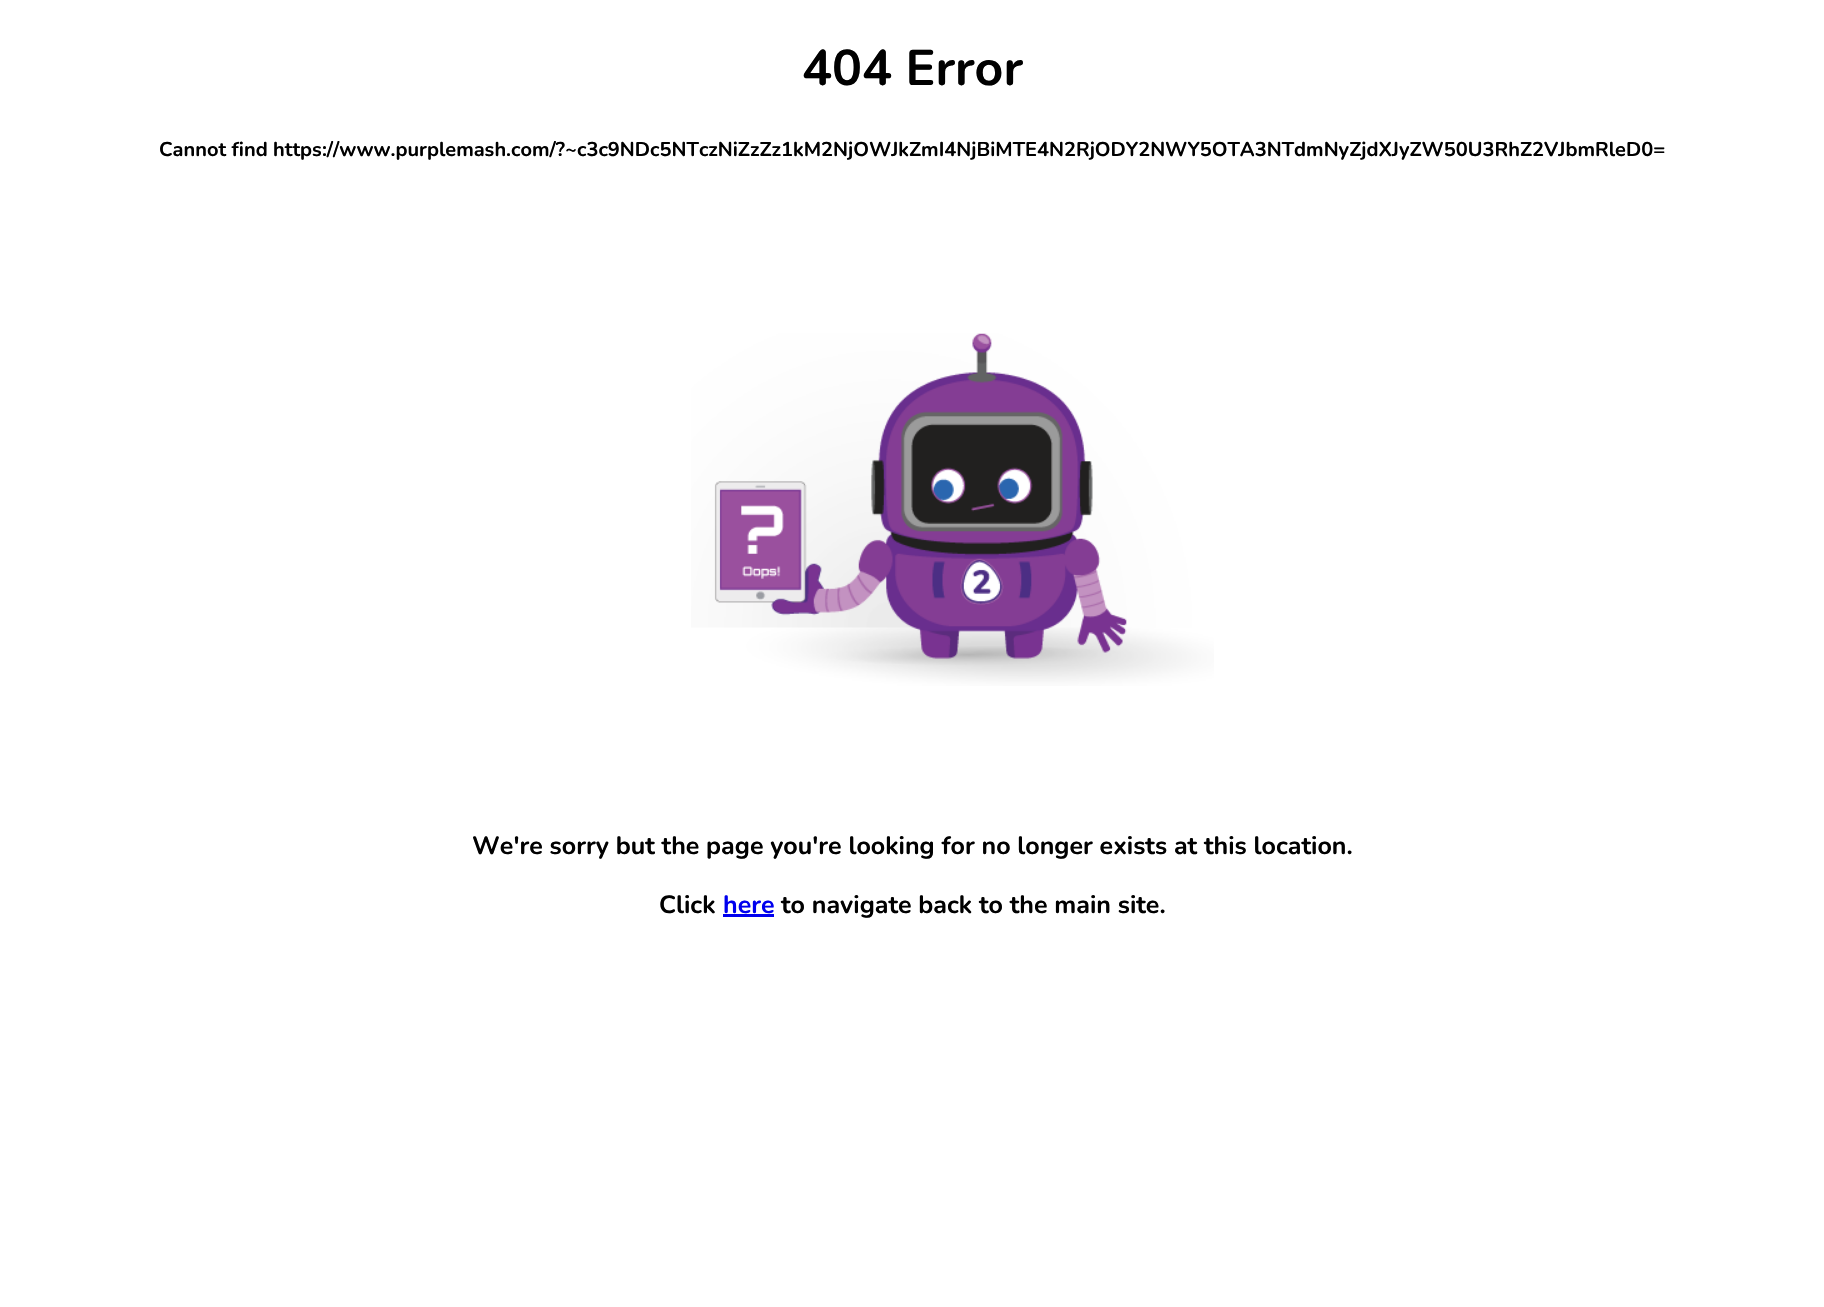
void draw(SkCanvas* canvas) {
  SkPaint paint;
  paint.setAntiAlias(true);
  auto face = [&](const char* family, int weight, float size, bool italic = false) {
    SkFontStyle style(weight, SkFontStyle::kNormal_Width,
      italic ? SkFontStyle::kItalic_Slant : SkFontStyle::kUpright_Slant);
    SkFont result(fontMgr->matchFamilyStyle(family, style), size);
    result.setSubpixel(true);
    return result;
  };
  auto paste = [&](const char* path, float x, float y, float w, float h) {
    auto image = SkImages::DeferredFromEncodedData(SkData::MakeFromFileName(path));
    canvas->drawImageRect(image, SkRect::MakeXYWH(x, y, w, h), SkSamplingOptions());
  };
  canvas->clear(0xffffffff);
  paste("img/1.png", 691, 333, 523, 353);
  paint.setColor(0xff0000ee);
  canvas->drawRect(SkRect::MakeXYWH(723, 914, 51, 3), paint);
  auto f0 = face("Nunito", 700, 50);
  paint.setColor(0xff000000);
  canvas->drawString("404 Error", 802, 85, f0, paint);
  auto f1 = face("Nunito", 700, 20);
  canvas->drawString("Cannot find https://www.purplemash.com/?~c3c9NDc5NTczNiZzZz1kM2NjOWJkZmI4NjBiMTE4N2RjODY2NWY5OTA3NTdmNyZjdXJyZW50U3RhZ2VJbmRleD0=", 159, 156, f1, paint);
  auto f2 = face("Nunito", 700, 25);
  canvas->drawString("We're sorry but the page you're looking for no longer exists at this location.", 472, 854, f2, paint);
  canvas->drawString("Click", 659, 913, f2, paint);
  paint.setColor(0xff0000ee);
  canvas->drawString("here", 723, 913, f2, paint);
  paint.setColor(0xff000000);
  canvas->drawString("to navigate back to the main site.", 781, 913, f2, paint);
}
